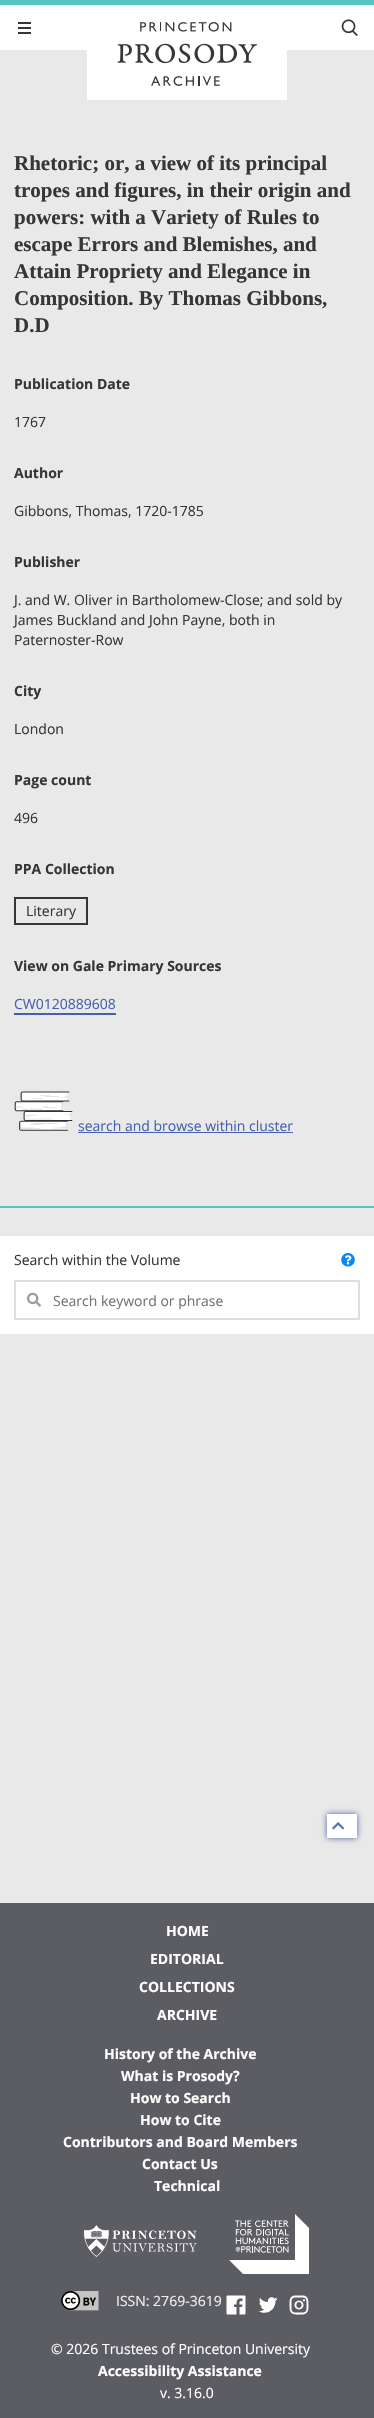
void draw(SkCanvas* canvas) {
  SkPaint paint;
  paint.setAntiAlias(true);
  auto face = [&](const char* family, int weight, float size, bool italic = false) {
    SkFontStyle style(weight, SkFontStyle::kNormal_Width,
      italic ? SkFontStyle::kItalic_Slant : SkFontStyle::kUpright_Slant);
    SkFont result(fontMgr->matchFamilyStyle(family, style), size);
    result.setSubpixel(true);
    return result;
  };
  auto paste = [&](const char* path, float x, float y, float w, float h) {
    auto image = SkImages::DeferredFromEncodedData(SkData::MakeFromFileName(path));
    canvas->drawImageRect(image, SkRect::MakeXYWH(x, y, w, h), SkSamplingOptions());
  };
  auto shape = [&](const char* data, bool evenOdd = false) {
    SkPath result = *SkParsePath::FromSVGString(data);
    if (evenOdd) result.setFillType(SkPathFillType::kEvenOdd);
    return result;
  };
  canvas->clear(0xffe9e9e9);
  {
    const struct { float x, y, w, h; SkColor color; } items[] = {
      {0, 5, 374, 45, 0xffffffff},
      {0, 0, 374, 5, 0xff57c4c4},
      {18, 22, 13, 2, 0xff363636},
      {18, 27, 13, 2, 0xff363636},
      {18, 32, 13, 2, 0xff363636},
      {87, 50, 200, 50, 0xffffffff},
    };
    for (auto [x, y, w, h, color] : items) {
      paint.setColor(color);
      canvas->drawRect(SkRect::MakeXYWH(x, y, w, h), paint);
    }
  }
  paste("img/1.png", 117, 22, 141, 64);
  paste("img/2.png", 341, 19, 17, 17);
  paint.setColor(0xff57c4c4);
  canvas->drawRect(SkRect::MakeXYWH(0, 1206, 374, 2), paint);
  paint.setStroke(true);
  paint.setStrokeWidth(2);
  paint.setColor(0xff363636);
  canvas->drawRect(SkRect::MakeXYWH(15, 898, 72, 26), paint);
  paint.setStroke(false);
  paint.setColor(0xff4661ac);
  canvas->drawRect(SkRect::MakeXYWH(14, 1013, 102, 2), paint);
  paste("img/3.png", 14, 1091, 59, 40);
  canvas->drawRect(SkRect::MakeXYWH(78, 1132, 215, 1), paint);
  paint.setColor(0xffffffff);
  canvas->drawRect(SkRect::MakeXYWH(0, 1236, 374, 98), paint);
  paint.setStroke(true);
  paint.setColor(0xffdedede);
  canvas->drawRect(SkRect::MakeXYWH(15, 1281, 344, 38), paint);
  paste("img/4.png", 27, 1292, 14, 15);
  paste("img/5.png", 341, 1253, 14, 14);
  paint.setStroke(false);
  paint.setColor(0xff4661ac);
  paint.setMaskFilter(SkMaskFilter::MakeBlur(kNormal_SkBlurStyle, 3));
  canvas->drawRect(SkRect::MakeXYWH(327, 1814, 30, 24), paint);
  paint.setMaskFilter(nullptr);
  paint.setColor(0xffffffff);
  canvas->drawRect(SkRect::MakeXYWH(327, 1814, 30, 24), paint);
  paste("img/6.png", 332, 1822, 12, 8);
  paint.setColor(0xff5c5c63);
  canvas->drawRect(SkRect::MakeXYWH(0, 1903, 374, 515), paint);
  paste("img/7.png", 84, 2225, 113, 32);
  paste("img/8.png", 229, 2214, 80, 60);
  paste("img/9.png", 61, 2291, 38, 20);
  paint.setColor(0xffffffff);
  canvas->drawPath(shape("M227.5 2314.5H236.5V2307H234V2304.5H236.5C236.5 2299.5 237.5 2298 242.5 2298.5V2301C239 2301 239.5 2301.5 239.5 2304.5H242.5L242 2307H239.5V2314.5H244.5C245 2314.5 245.5 2314 245.5 2313.5V2296.5C245.5 2296 245 2295.5 244.5 2295.5H227.5C227 2295.5 226.5 2296 226.5 2296.5V2313.5C226.5 2314 227 2314.5 227.5 2314.5ZM277.5 2299L275.5 2301C275.5 2310 266.5 2316 258.5 2311C260.5 2311.5 263 2310.5 264.5 2309.5C262.5 2309.5 261 2308 261 2306.5H262.5C260.5 2306 259.5 2304.5 259.5 2302.5L261 2303C259.5 2302 259 2299.5 260 2298C262 2300.5 265 2302 268 2302C267 2298.5 271.5 2295.5 274.5 2298.5L277 2297.5C276.5 2298.5 276 2299 275 2299.5Z"), paint);
  canvas->drawPath(shape("M295 2295.5C289.5 2295.5 289.5 2301 289.5 2305C289.5 2308.5 289.5 2312.5 293 2314C295 2315 300.5 2314.5 303 2314.5C308.5 2314 308.5 2309 308.5 2305C308.5 2301 308.5 2295.5 303 2295.5ZM295 2297.5H303C305 2297.5 306.5 2299 306.5 2301V2309C306.5 2311 305 2312.5 303 2312.5H295C293 2312.5 291.5 2311 291.5 2309V2301C291.5 2299 293 2297.5 295 2297.5ZM304 2299C302.5 2299 302.5 2301.5 304 2301.5C305.5 2301.5 305.5 2299 304 2299ZM299 2300.5C293 2300.5 293 2309.5 299 2309.5C305 2309.5 305 2300.5 299 2300.5ZM299 2302C302.5 2302 302.5 2308 299 2308C295.5 2308 295.5 2302 299 2302Z", true), paint);
  auto f0 = face("Liberation Serif", 700, 21);
  paint.setColor(0xff363636);
  {
    const struct { const char* s; float x, y; } items[] = {
      {"Rhetoric; or, a view of its principal", 14, 170},
      {"tropes and figures, in their origin and", 14, 197},
      {"powers: with a Variety of Rules to", 14, 224},
      {"escape Errors and Blemishes, and", 14, 251},
      {"Attain Propriety and Elegance in", 14, 278},
      {"Composition. By Thomas Gibbons,", 14, 305},
      {"D.D", 14, 332},
    };
    for (auto [s, x, y] : items) {
      canvas->drawString(s, x, y, f0, paint);
    }
  }
  auto f1 = face("Open Sans", 700, 14);
  canvas->drawString("Publication Date", 14, 389, f1, paint);
  auto f2 = face("Open Sans", 400, 14);
  canvas->drawString("1767", 14, 427, f2, paint);
  canvas->drawString("Author", 14, 478, f1, paint);
  canvas->drawString("Gibbons, Thomas, 1720-1785", 14, 516, f2, paint);
  canvas->drawString("Publisher", 14, 567, f1, paint);
  {
    const struct { const char* s; float x, y; } items[] = {
      {"J. and W. Oliver in Bartholomew-Close; and sold by", 14, 605},
      {"James Buckland and John Payne, both in", 14, 625},
      {"Paternoster-Row", 14, 645},
    };
    for (auto [s, x, y] : items) {
      canvas->drawString(s, x, y, f2, paint);
    }
  }
  canvas->drawString("City", 14, 696, f1, paint);
  canvas->drawString("London", 14, 734, f2, paint);
  canvas->drawString("Page count", 14, 785, f1, paint);
  canvas->drawString("496", 14, 823, f2, paint);
  canvas->drawString("PPA Collection", 14, 874, f1, paint);
  canvas->drawString("Literary", 26, 916, f2, paint);
  canvas->drawString("View on Gale Primary Sources", 14, 971, f1, paint);
  paint.setColor(0xff4661ac);
  canvas->drawString("CW0120889608", 14, 1009, f2, paint);
  canvas->drawString("search and browse within cluster", 78, 1131, f2, paint);
  paint.setColor(0xff363636);
  canvas->drawString("Search within the Volume", 14, 1265, f2, paint);
  paint.setColor(0xff737373);
  canvas->drawString("Search keyword or phrase", 53, 1306, f2, paint);
  paint.setColor(0xffffffff);
  {
    const struct { const char* s; float x, y; } items[] = {
      {"HOME", 166, 1936},
      {"EDITORIAL", 150, 1964},
      {"COLLECTIONS", 139, 1992},
      {"ARCHIVE", 157, 2020},
      {"History of the Archive", 104, 2059},
      {"What is Prosody?", 121, 2081},
      {"How to Search", 130, 2103},
      {"How to Cite", 140, 2125},
      {"Contributors and Board Members", 63, 2147},
      {"Contact Us", 142, 2169},
      {"Technical", 154, 2191},
    };
    for (auto [s, x, y] : items) {
      canvas->drawString(s, x, y, f1, paint);
    }
  }
  paint.setColor(0xffefefef);
  canvas->drawString("ISSN: 2769-3619", 116, 2306, f2, paint);
  paint.setColor(0xffffffff);
  canvas->drawString("© 2026 Trustees of Princeton University", 51, 2354, f2, paint);
  canvas->drawString("Accessibility Assistance", 98, 2376, f1, paint);
  canvas->drawString("v. 3.16.0", 160, 2398, f2, paint);
}
